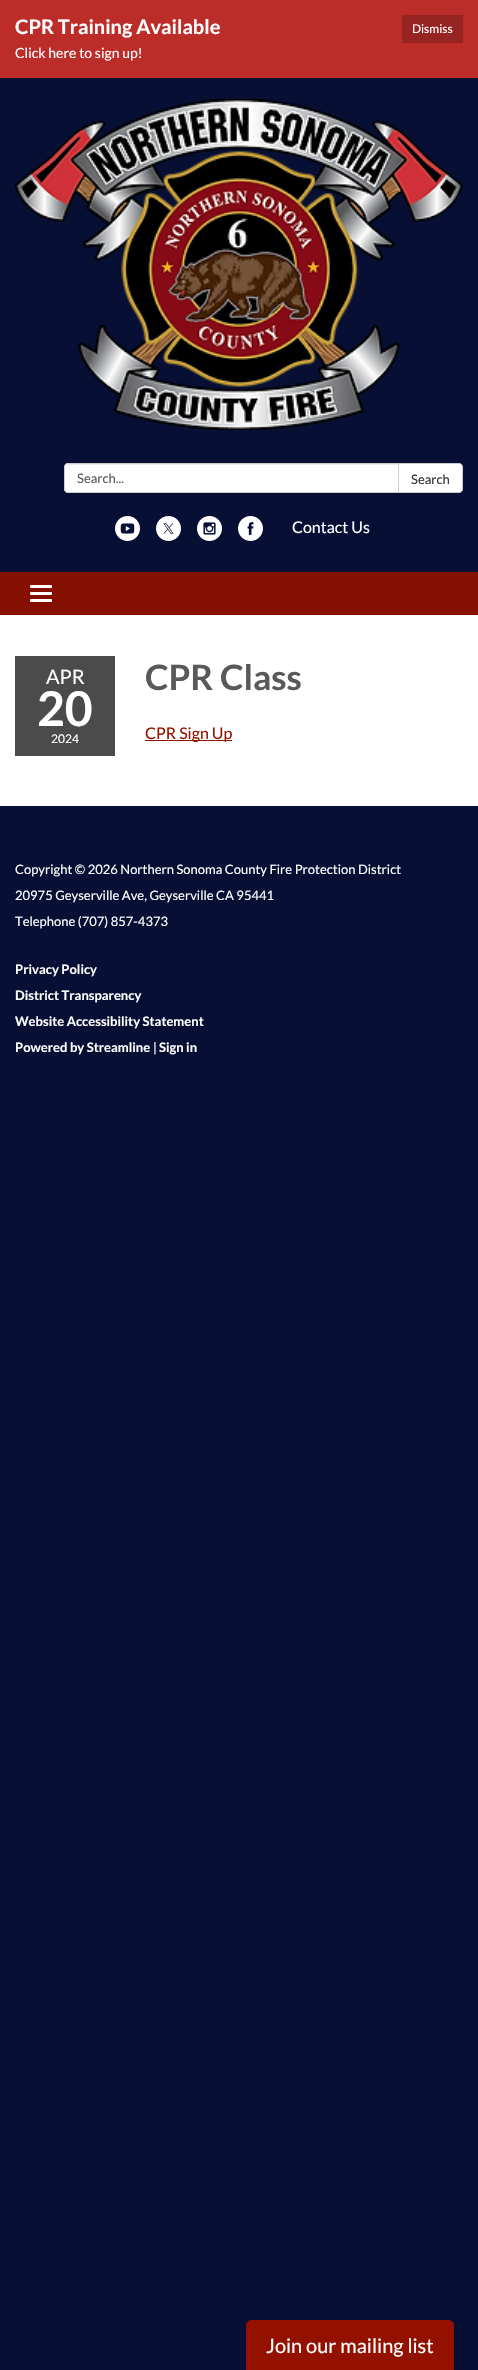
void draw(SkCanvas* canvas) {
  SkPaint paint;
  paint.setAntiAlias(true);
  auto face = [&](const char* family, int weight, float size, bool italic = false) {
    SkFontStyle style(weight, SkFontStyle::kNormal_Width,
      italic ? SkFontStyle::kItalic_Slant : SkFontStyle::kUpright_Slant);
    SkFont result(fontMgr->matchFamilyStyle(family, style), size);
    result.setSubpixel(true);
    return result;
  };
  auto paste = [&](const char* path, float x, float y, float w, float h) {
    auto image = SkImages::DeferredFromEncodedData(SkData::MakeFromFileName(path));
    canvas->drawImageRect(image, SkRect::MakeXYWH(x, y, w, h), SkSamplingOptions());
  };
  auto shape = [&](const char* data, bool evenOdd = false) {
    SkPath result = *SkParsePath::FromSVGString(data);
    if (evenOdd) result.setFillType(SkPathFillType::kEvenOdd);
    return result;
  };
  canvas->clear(0xff071034);
  paint.setColor(0xffbc2d2a);
  canvas->drawRect(SkRect::MakeXYWH(0, 0, 478, 78), paint);
  paint.setColor(0xff962422);
  canvas->drawRect(SkRect::MakeXYWH(402, 15, 61, 28), paint);
  paste("img/1.png", 15, 99, 448, 331);
  paint.setColor(0xffffffff);
  canvas->drawPath(shape("M68 463H399V493H68C66 493 64 491 64 489V467C64 465 66 463 68 463Z"), paint);
  paint.setColor(0xffececec);
  canvas->drawPath(shape("M68 465H398V464H68C66 464 65 466 65 468C65 466 66 465 68 465Z"), paint);
  paint.setStroke(true);
  paint.setStrokeWidth(1);
  paint.setColor(0xffcccccc);
  canvas->drawPath(shape("M68 463.5H398.5V492.5H68C66 492.5 64.5 491 64.5 489V467C64.5 465 66 463.5 68 463.5Z"), paint);
  paint.setStroke(false);
  paint.setColor(0xffffffff);
  canvas->drawPath(shape("M398.5 463.5H459C461 463.5 462.5 465 462.5 467V489C462.5 491 461 492.5 459 492.5H398.5Z"), paint);
  paint.setStroke(true);
  paint.setColor(0xffcccccc);
  canvas->drawPath(shape("M398.5 463.5H459C461 463.5 462.5 465 462.5 467V489C462.5 491 461 492.5 459 492.5H398.5Z"), paint);
  paste("img/2.png", 115, 516, 25, 25);
  paste("img/3.png", 156, 516, 25, 25);
  paste("img/4.png", 197, 516, 25, 25);
  paste("img/5.png", 238, 516, 25, 25);
  paint.setStroke(false);
  paint.setColor(0xff850f00);
  canvas->drawRect(SkRect::MakeXYWH(0, 572, 478, 43), paint);
  paint.setColor(0xffffffff);
  canvas->drawRoundRect(SkRect::MakeXYWH(30, 585, 22, 3), 1, 1, paint);
  canvas->drawRoundRect(SkRect::MakeXYWH(30, 592, 22, 3), 1, 1, paint);
  canvas->drawRoundRect(SkRect::MakeXYWH(30, 599, 22, 3), 1, 1, paint);
  {
    const struct { float x, y, w, h; SkColor color; } items[] = {
      {0, 615, 478, 191, 0xffffffff},
      {15, 656, 100, 100, 0xff4b4b4b},
      {145, 740, 87, 1, 0xff941100},
    };
    for (auto [x, y, w, h, color] : items) {
      paint.setColor(color);
      canvas->drawRect(SkRect::MakeXYWH(x, y, w, h), paint);
    }
  }
  paint.setColor(0x4d000000);
  paint.setMaskFilter(SkMaskFilter::MakeBlur(kNormal_SkBlurStyle, 1.5f));
  canvas->drawRoundRect(SkRect::MakeXYWH(247, 2321, 208, 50), 6, 6, paint);
  paint.setMaskFilter(nullptr);
  paint.setColor(0xff941100);
  canvas->drawPath(shape("M252 2320H448C451.5 2320 454 2322.5 454 2326V2370H246V2326C246 2322.5 248.5 2320 252 2320Z"), paint);
  auto f0 = face("Lato", 700, 20);
  paint.setColor(0xffffffff);
  canvas->drawString("CPR Training Available", 15, 34, f0, paint);
  auto f1 = face("Lato", 400, 12);
  canvas->drawString("Dismiss", 412, 33, f1, paint);
  auto f2 = face("Lato", 400, 14);
  canvas->drawString("Click here to sign up!", 15, 58, f2, paint);
  auto f3 = face("Lato", 400, 13);
  paint.setColor(0xff58595b);
  canvas->drawString("Search...", 77, 483, f3, paint);
  paint.setColor(0xff333333);
  canvas->drawString("Search", 411, 484, f3, paint);
  auto f4 = face("Lato", 400, 16);
  paint.setColor(0xffffffff);
  canvas->drawString("Contact Us", 292, 533, f4, paint);
  auto f5 = face("Lato", 400, 20);
  canvas->drawString("APR", 46, 684, f5, paint);
  auto f6 = face("Lato", 700, 48);
  canvas->drawString("20", 37, 726, f6, paint);
  canvas->drawString("2024", 51, 743, f1, paint);
  auto f7 = face("Lato", 700, 35);
  paint.setColor(0xff58595b);
  canvas->drawString("CPR Class", 145, 690, f7, paint);
  paint.setColor(0xff941100);
  canvas->drawString("CPR Sign Up", 145, 739, f4, paint);
  paint.setColor(0xffffffff);
  {
    const struct { const char* s; float x, y; } items[] = {
      {"Copyright © 2026 Northern Sonoma County Fire Protection District", 15, 874},
      {"20975 Geyserville Ave, Geyserville CA 95441", 15, 900},
      {"Telephone (707) 857-4373", 15, 926},
    };
    for (auto [s, x, y] : items) {
      canvas->drawString(s, x, y, f3, paint);
    }
  }
  auto f8 = face("Lato", 700, 13);
  {
    const struct { const char* s; float x, y; } items[] = {
      {"Privacy Policy", 15, 974},
      {"District Transparency", 15, 1000},
      {"Website Accessibility Statement", 15, 1026},
      {"Powered by Streamline", 15, 1052},
    };
    for (auto [s, x, y] : items) {
      canvas->drawString(s, x, y, f8, paint);
    }
  }
  canvas->drawString("|", 153, 1052, f3, paint);
  canvas->drawString("Sign in", 159, 1052, f8, paint);
  canvas->drawString("Join our mailing list", 266, 2353, f5, paint);
}
